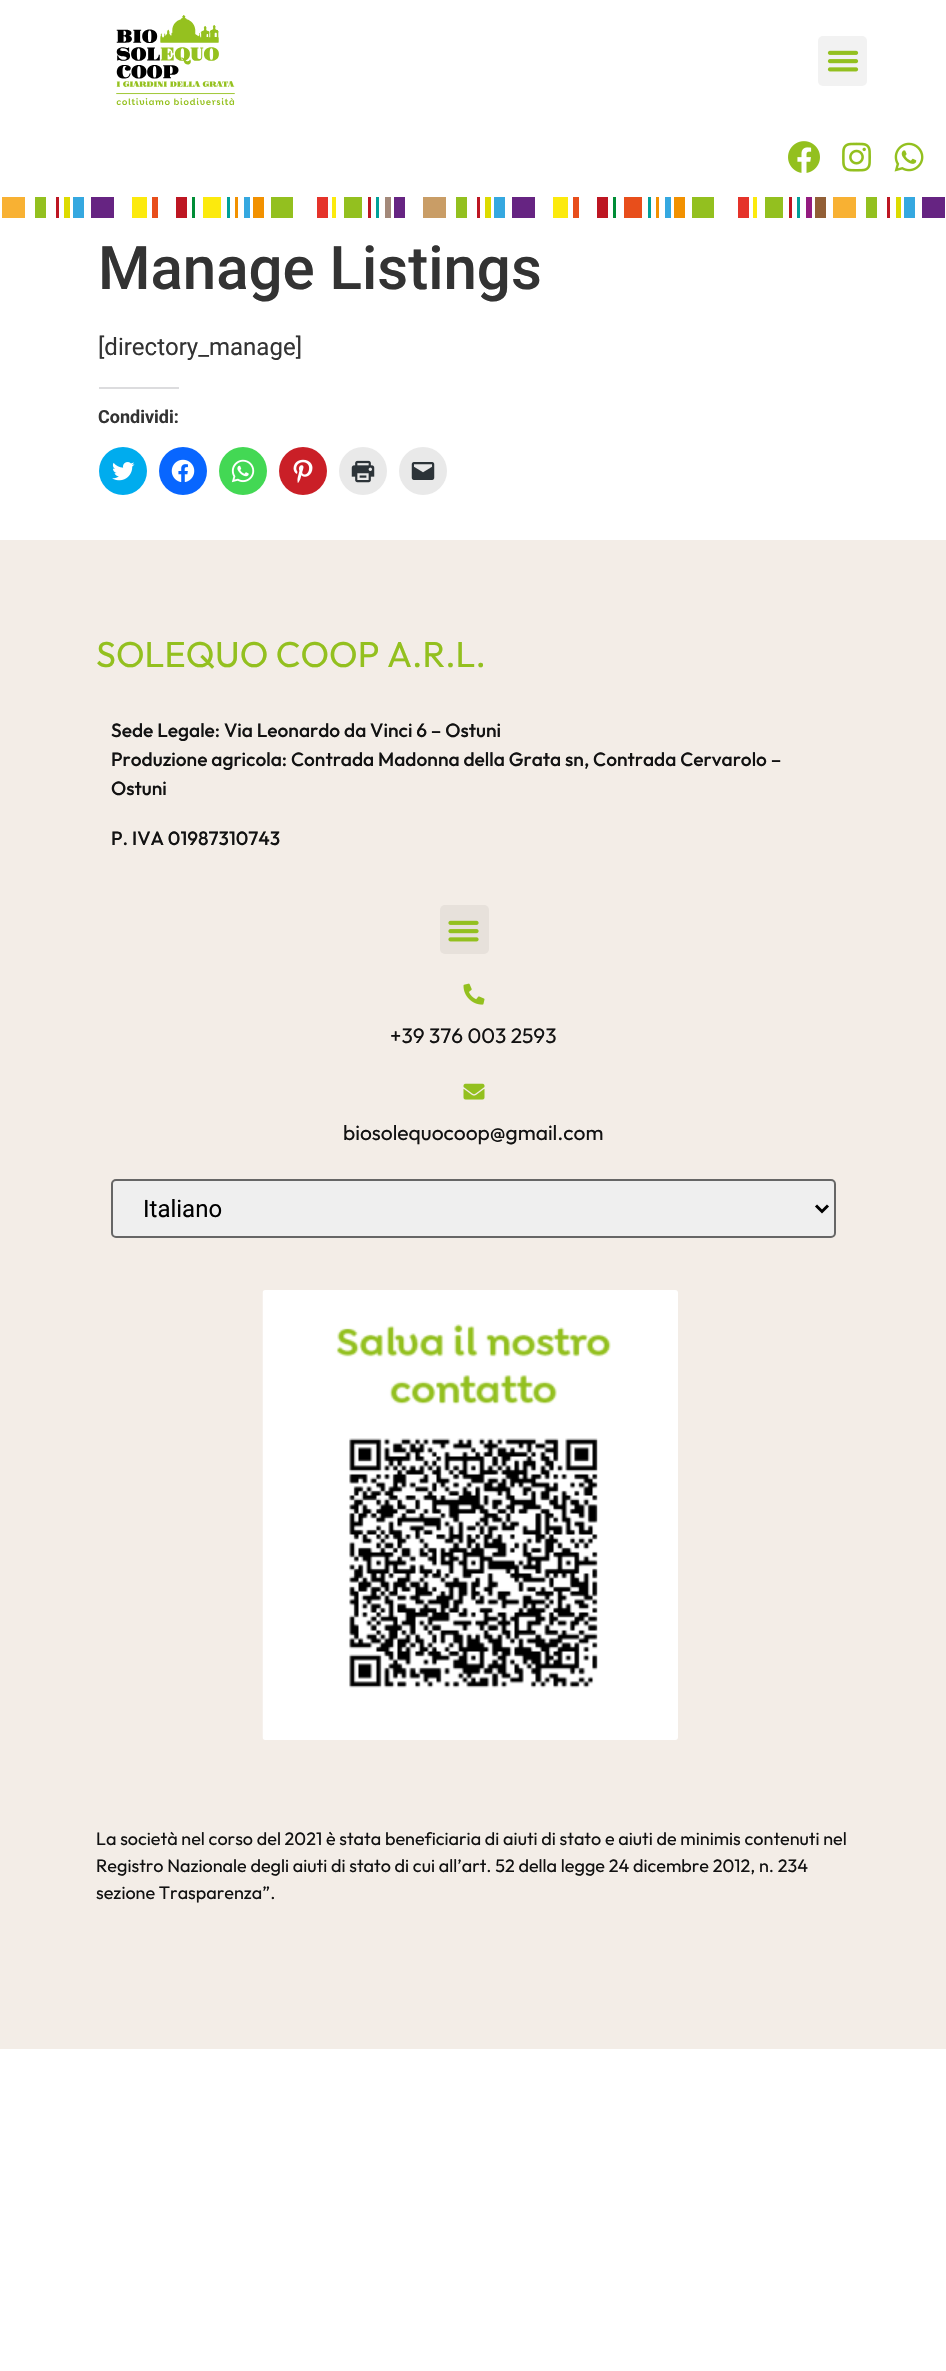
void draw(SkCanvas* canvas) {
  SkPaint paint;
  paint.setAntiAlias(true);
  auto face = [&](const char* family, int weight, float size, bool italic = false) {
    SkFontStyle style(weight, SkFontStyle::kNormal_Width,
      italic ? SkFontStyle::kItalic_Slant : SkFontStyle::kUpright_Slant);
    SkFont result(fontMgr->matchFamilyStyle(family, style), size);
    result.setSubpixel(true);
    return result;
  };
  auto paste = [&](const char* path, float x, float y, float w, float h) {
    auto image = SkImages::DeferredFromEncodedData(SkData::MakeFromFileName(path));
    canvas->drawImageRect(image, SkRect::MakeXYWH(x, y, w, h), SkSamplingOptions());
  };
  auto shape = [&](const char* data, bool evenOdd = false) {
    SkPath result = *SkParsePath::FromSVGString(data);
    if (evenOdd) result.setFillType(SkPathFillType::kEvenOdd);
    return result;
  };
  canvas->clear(0xffffffff);
  paste("img/1.png", 116, 15, 119, 90);
  paint.setColor(0xfff2f2f2);
  canvas->drawRoundRect(SkRect::MakeXYWH(818, 36, 49, 50), 5, 5, paint);
  paste("img/2.png", 827, 50, 32, 22);
  paste("img/3.png", 788, 141, 32, 32);
  paste("img/4.png", 842, 142, 29, 30);
  paste("img/5.png", 894, 142, 30, 30);
  paste("img/6.png", 2, 197, 943, 21);
  paint.setColor(0xffdcdcde);
  canvas->drawRect(SkRect::MakeXYWH(99, 387, 80, 2), paint);
  paint.setColor(0xff00acee);
  canvas->drawCircle(123, 471, 24, paint);
  paste("img/7.png", 112, 462, 23, 19);
  paint.setColor(0xff0866ff);
  canvas->drawCircle(183, 471, 24, paint);
  paste("img/8.png", 171, 459, 24, 23);
  paint.setColor(0xff43d854);
  canvas->drawCircle(243, 471, 24, paint);
  paste("img/9.png", 231, 459, 24, 24);
  paint.setColor(0xffca1f27);
  canvas->drawCircle(303, 471, 24, paint);
  paste("img/10.png", 293, 459, 20, 24);
  paint.setColor(0xffe9e9e9);
  canvas->drawCircle(363, 471, 24, paint);
  paste("img/11.png", 351, 460, 24, 23);
  canvas->drawCircle(423, 471, 24, paint);
  paste("img/12.png", 411, 462, 24, 18);
  paint.setColor(0xfff3ede7);
  canvas->drawRect(SkRect::MakeXYWH(0, 540, 946, 1509), paint);
  paint.setColor(0xffe7e1db);
  canvas->drawRoundRect(SkRect::MakeXYWH(440, 905, 49, 49), 5, 5, paint);
  paste("img/13.png", 448, 920, 31, 22);
  paste("img/14.png", 463, 983, 22, 22);
  paste("img/15.png", 463, 1083, 22, 17);
  paint.setColor(0xffefefef);
  canvas->drawRoundRect(SkRect::MakeXYWH(112, 1180, 723, 57), 4, 4, paint);
  paint.setStroke(true);
  paint.setStrokeWidth(2);
  paint.setColor(0xff666666);
  canvas->drawRoundRect(SkRect::MakeXYWH(112, 1180, 723, 57), 4, 4, paint);
  paint.setStrokeWidth(3);
  paint.setColor(0xff000000);
  canvas->drawPath(shape("M816 1205.5L822 1211.5L828 1205.5"), paint);
  paste("img/16.png", 262, 1290, 416, 450);
  auto f0 = face("Roboto", 500, 60);
  paint.setStroke(false);
  paint.setColor(0xff333333);
  canvas->drawString("Manage Listings", 98, 289, f0, paint);
  auto f1 = face("Roboto", 400, 24);
  canvas->drawString("[directory_manage]", 98, 355, f1, paint);
  auto f2 = face("Roboto", 700, 18);
  canvas->drawString("Condividi:", 98, 423, f2, paint);
  auto f3 = face("Outfit", 400, 36);
  paint.setColor(0xff93c01f);
  canvas->drawString("SOLEQUO COOP A.R.L.", 96, 667, f3, paint);
  auto f4 = face("Outfit", 500, 19.2f);
  paint.setColor(0xff121212);
  {
    const struct { const char* s; float x, y; } items[] = {
      {"Sede Legale: Via Leonardo da Vinci 6 – Ostuni", 111, 737},
      {"Produzione agricola: Contrada Madonna della Grata sn, Contrada Cervarolo –", 111, 766},
      {"Ostuni", 111, 795},
      {"P. IVA 01987310743", 111, 845},
    };
    for (auto [s, x, y] : items) {
      canvas->drawString(s, x, y, f4, paint);
    }
  }
  auto f5 = face("Outfit", 400, 21);
  canvas->drawString("+39 376 003 2593", 390, 1043, f5, paint);
  canvas->drawString("biosolequocoop@gmail.com", 343, 1140, f5, paint);
  paint.setColor(0xff000000);
  canvas->drawString("Italiano", 143, 1217, f1, paint);
  auto f6 = face("Outfit", 400, 18);
  paint.setColor(0xff121212);
  {
    const struct { const char* s; float x, y; } items[] = {
      {"La società nel corso del 2021 è stata beneficiaria di aiuti di stato e aiuti de minimis contenuti nel", 96, 1845},
      {"Registro Nazionale degli aiuti di stato di cui all’art. 52 della legge 24 dicembre 2012, n. 234", 96, 1872},
      {"sezione Trasparenza”.", 96, 1899},
    };
    for (auto [s, x, y] : items) {
      canvas->drawString(s, x, y, f6, paint);
    }
  }
}
